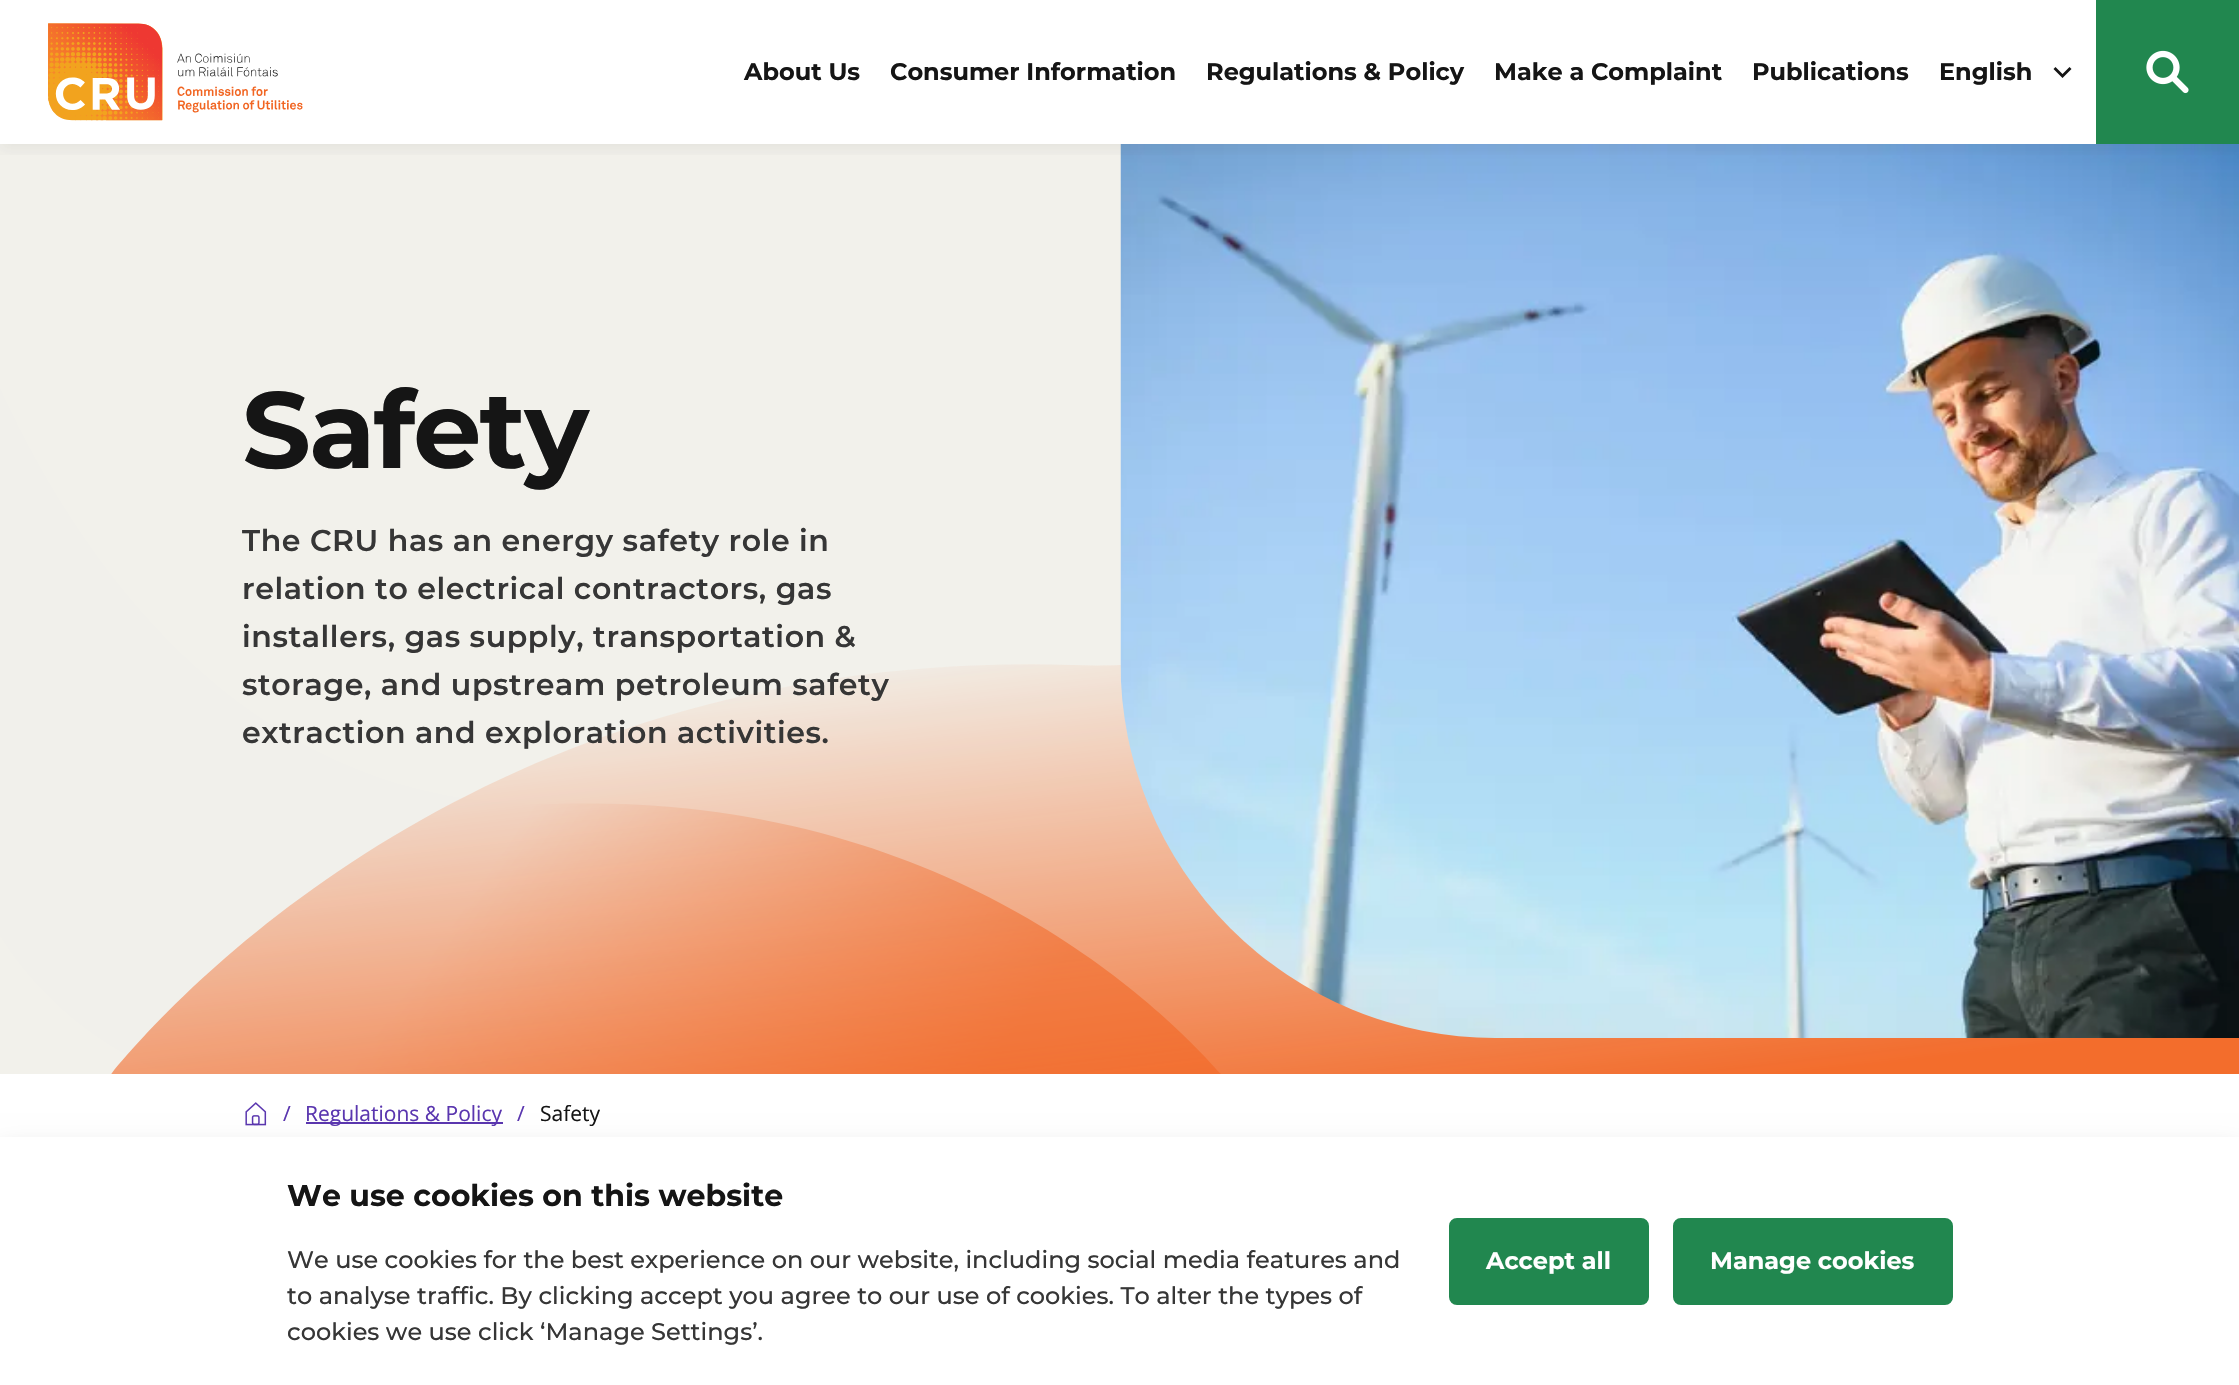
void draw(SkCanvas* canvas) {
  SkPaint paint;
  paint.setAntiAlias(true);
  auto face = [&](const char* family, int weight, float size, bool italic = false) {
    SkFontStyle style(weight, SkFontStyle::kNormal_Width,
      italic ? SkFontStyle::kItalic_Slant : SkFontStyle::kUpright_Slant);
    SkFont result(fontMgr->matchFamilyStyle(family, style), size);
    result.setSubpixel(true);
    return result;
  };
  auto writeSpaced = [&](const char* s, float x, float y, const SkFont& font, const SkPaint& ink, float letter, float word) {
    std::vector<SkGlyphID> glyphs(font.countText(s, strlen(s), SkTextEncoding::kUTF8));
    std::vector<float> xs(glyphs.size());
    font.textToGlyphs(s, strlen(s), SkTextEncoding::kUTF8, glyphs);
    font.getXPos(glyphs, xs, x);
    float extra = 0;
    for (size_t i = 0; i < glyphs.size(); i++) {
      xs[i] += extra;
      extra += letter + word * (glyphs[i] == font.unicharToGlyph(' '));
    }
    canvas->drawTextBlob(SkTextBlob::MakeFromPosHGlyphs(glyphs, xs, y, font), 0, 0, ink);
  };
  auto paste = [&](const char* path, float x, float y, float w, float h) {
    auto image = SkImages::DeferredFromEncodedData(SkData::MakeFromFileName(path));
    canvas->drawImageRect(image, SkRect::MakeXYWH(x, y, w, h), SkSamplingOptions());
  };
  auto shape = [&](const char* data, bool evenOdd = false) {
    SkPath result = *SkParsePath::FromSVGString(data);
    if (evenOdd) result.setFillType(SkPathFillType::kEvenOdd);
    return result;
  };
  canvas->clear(0xffffffff);
  paint.setColor(0xfff2f1eb);
  canvas->drawRect(SkRect::MakeXYWH(0, 144, 2239, 930), paint);
  canvas->save();
  canvas->clipRect(SkRect::MakeXYWH(0, 144, 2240, 930));
  {
    const SkColor colors[] = {0xfff1a179, 0xfff1f0eb};
    const float stops[] = {0, 1};
    const SkPoint ends[] = {{971, 1095}, {538, 797}};
    paint.setShader(SkGradientShader::MakeLinear(ends, colors, stops, 2, SkTileMode::kClamp));
    paint.setAlpha(255);
  }
  canvas->drawPath(shape("M558 804C988 791 1210 1059 1236 1092H241C139 1078 52 1018 0 935V389C76 555 246 814 558 804Z"), paint);
  {
    const SkColor colors[] = {0xf2f26522, 0x00f26522};
    const float stops[] = {0.38f, 1};
    const SkPoint ends[] = {{670, 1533}, {571, 684}};
    paint.setShader(SkGradientShader::MakeLinear(ends, colors, stops, 2, SkTileMode::kClamp));
    paint.setAlpha(255);
  }
  canvas->drawPath(shape("M1072 665C447 646 128 1051 97 1092H2239V169L2198 128H1847C1725 363 1485 678 1072 665Z"), paint);
  canvas->restore();
  paste("img/3.png", 1120, 144, 1119, 894);
  canvas->save();
  canvas->clipRect(SkRect::MakeXYWH(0, 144, 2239, 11));
  paint.setShader(nullptr);
  paint.setColor(0x14414141);
  paint.setMaskFilter(SkMaskFilter::MakeBlur(kNormal_SkBlurStyle, 7));
  canvas->drawRect(SkRect::MakeXYWH(-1, 3, 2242, 147), paint);
  paint.setMaskFilter(nullptr);
  canvas->restore();
  paste("img/1.png", 48, 23, 255, 98);
  paint.setColor(0xff151515);
  canvas->drawPath(shape("M2055.5 67L2062.5 74L2069.5 67L2071.5 69L2062.5 78L2053.5 69Z"), paint);
  paint.setColor(0xff21874f);
  canvas->drawRect(SkRect::MakeXYWH(2096, 0, 143, 144), paint);
  paste("img/2.png", 2146, 50, 43, 44);
  paste("img/4.png", 245, 1102, 22, 24);
  paint.setColor(0xff5a36af);
  canvas->drawRect(SkRect::MakeXYWH(306, 1122, 197, 2), paint);
  paint.setColor(0x26000000);
  paint.setMaskFilter(SkMaskFilter::MakeBlur(kNormal_SkBlurStyle, 12));
  canvas->drawRect(SkRect::MakeXYWH(0, 1149, 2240, 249), paint);
  paint.setMaskFilter(nullptr);
  paint.setColor(0xffffffff);
  canvas->drawRect(SkRect::MakeXYWH(0, 1137, 2239, 248), paint);
  paint.setColor(0xff21874f);
  canvas->drawRoundRect(SkRect::MakeXYWH(1450, 1219, 198, 85), 7, 7, paint);
  paint.setStroke(true);
  paint.setStrokeWidth(2);
  canvas->drawRoundRect(SkRect::MakeXYWH(1450, 1219, 198, 85), 7, 7, paint);
  paint.setStroke(false);
  canvas->drawRoundRect(SkRect::MakeXYWH(1674, 1219, 278, 85), 7, 7, paint);
  paint.setStroke(true);
  canvas->drawRoundRect(SkRect::MakeXYWH(1674, 1219, 278, 85), 7, 7, paint);
  auto f0 = face("Montserrat", 700, 24);
  paint.setStroke(false);
  paint.setColor(0xff151515);
  {
    const struct { const char* s; float x, y; } items[] = {
      {"About Us", 744, 80},
      {"Consumer Information", 890, 80},
      {"Regulations & Policy", 1206, 80},
      {"Make a Complaint", 1494, 80},
      {"Publications", 1752, 80},
      {"English", 1939, 80},
    };
    for (auto [s, x, y] : items) {
      canvas->drawString(s, x, y, f0, paint);
    }
  }
  auto f1 = face("Montserrat", 700, 108);
  writeSpaced("Safety", 242, 468, f1, paint, -2, 0);
  auto f2 = face("Montserrat", 600, 30);
  paint.setColor(0xff363636);
  {
    const struct { const char* s; float x, y; } items[] = {
      {"The CRU has an energy safety role in", 242, 551},
      {"relation to electrical contractors, gas", 242, 599},
      {"installers, gas supply, transportation &", 242, 647},
      {"storage, and upstream petroleum safety", 242, 695},
      {"extraction and exploration activities.", 242, 743},
    };
    for (auto [s, x, y] : items) {
      writeSpaced(s, x, y, f2, paint, 0.6f, 0);
    }
  }
  auto f3 = face("Open Sans", 400, 21);
  paint.setColor(0xff5a36af);
  {
    const struct { const char* s; float x, y; } items[] = {
      {"/", 283, 1121},
      {"Regulations & Policy", 305, 1121},
      {"/", 517, 1121},
    };
    for (auto [s, x, y] : items) {
      canvas->drawString(s, x, y, f3, paint);
    }
  }
  paint.setColor(0xff151515);
  canvas->drawString("Safety", 540, 1121, f3, paint);
  auto f4 = face("Montserrat", 700, 30);
  canvas->drawString("We use cookies on this website", 287, 1206, f4, paint);
  auto f5 = face("Montserrat", 500, 24);
  paint.setColor(0xff363636);
  {
    const struct { const char* s; float x, y; } items[] = {
      {"We use cookies for the best experience on our website, including social media features and", 287, 1268},
      {"to analyse traffic. By clicking accept you agree to our use of cookies. To alter the types of", 287, 1304},
      {"cookies we use click ‘Manage Settings’.", 287, 1340},
    };
    for (auto [s, x, y] : items) {
      canvas->drawString(s, x, y, f5, paint);
    }
  }
  paint.setColor(0xffffffff);
  canvas->drawString("Accept all", 1486, 1269, f0, paint);
  canvas->drawString("Manage cookies", 1710, 1269, f0, paint);
}
